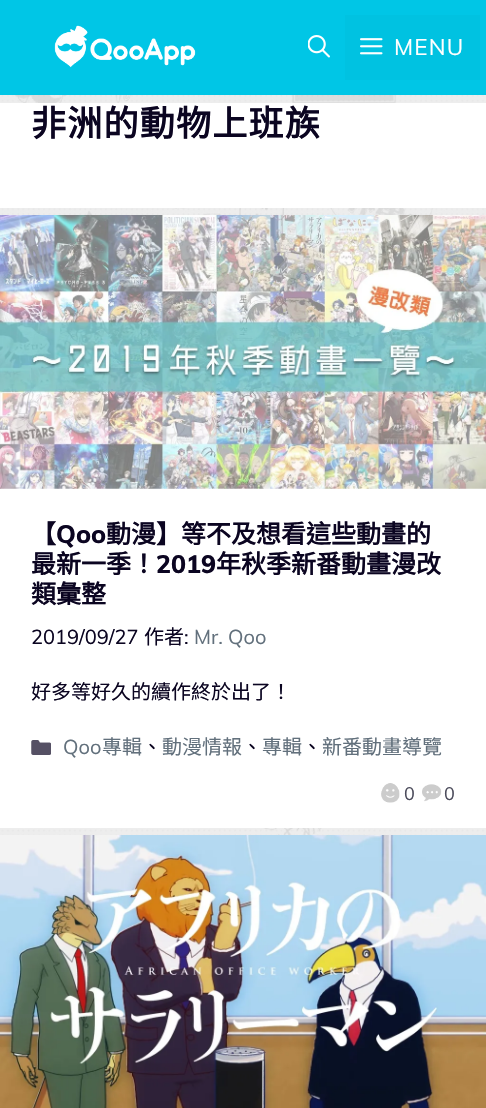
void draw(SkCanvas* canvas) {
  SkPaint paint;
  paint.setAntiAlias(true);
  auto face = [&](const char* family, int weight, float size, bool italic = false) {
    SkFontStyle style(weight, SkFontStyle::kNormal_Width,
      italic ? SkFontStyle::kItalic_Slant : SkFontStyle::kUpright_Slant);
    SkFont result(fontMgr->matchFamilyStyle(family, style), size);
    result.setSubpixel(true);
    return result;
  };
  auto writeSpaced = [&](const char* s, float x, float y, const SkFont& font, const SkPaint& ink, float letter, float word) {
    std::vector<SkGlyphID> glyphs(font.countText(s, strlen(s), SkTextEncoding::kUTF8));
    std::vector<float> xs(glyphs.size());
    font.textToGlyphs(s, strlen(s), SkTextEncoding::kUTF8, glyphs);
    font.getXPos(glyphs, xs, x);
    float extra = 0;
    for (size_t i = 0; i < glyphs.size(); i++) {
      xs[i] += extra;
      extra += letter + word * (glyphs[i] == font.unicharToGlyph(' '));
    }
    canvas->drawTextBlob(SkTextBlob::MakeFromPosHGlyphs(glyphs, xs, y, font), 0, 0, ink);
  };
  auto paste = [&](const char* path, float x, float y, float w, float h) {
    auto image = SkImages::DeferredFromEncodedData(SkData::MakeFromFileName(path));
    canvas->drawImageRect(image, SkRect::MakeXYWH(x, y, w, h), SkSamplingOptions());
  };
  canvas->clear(0xffffffff);
  paste("img/1.png", 0, 95, 486, 740);
  paint.setColor(0xff00c6e6);
  canvas->drawRect(SkRect::MakeXYWH(0, 0, 486, 95), paint);
  paste("img/2.png", 54, 25, 142, 43);
  paste("img/3.png", 308, 35, 22, 23);
  paint.setColor(0xff00c2e1);
  canvas->drawRect(SkRect::MakeXYWH(345, 15, 135, 65), paint);
  paste("img/4.png", 360, 38, 23, 17);
  paint.setColor(0xffffffff);
  canvas->drawRect(SkRect::MakeXYWH(0, 103, 486, 105), paint);
  canvas->drawRect(SkRect::MakeXYWH(0, 488, 486, 340), paint);
  paste("img/5.png", 0, 215, 486, 274);
  paste("img/6.png", 381, 783, 19, 20);
  paste("img/7.png", 422, 784, 20, 18);
  paste("img/8.png", 31, 740, 20, 15);
  paste("img/9.png", 0, 835, 486, 273);
  auto f0 = face("Muli", 400, 22.5f);
  writeSpaced("MENU", 394, 55, f0, paint, 1.25f, 0);
  auto f1 = face("Noto Sans CJK TC", 700, 35);
  paint.setColor(0xff0b0521);
  writeSpaced("非洲的動物上班族", 31, 136, f1, paint, 1.25f, 0);
  auto f2 = face("Noto Sans CJK TC", 700, 25);
  canvas->drawString("【", 31, 543, f2, paint);
  auto f3 = face("Muli", 800, 25);
  canvas->drawString("Qoo", 56, 543, f3, paint);
  canvas->drawString("動漫】等不及想看這些動畫的", 106, 543, f2, paint);
  canvas->drawString("最新一季！", 31, 573, f2, paint);
  canvas->drawString("2019", 156, 573, f3, paint);
  canvas->drawString("年秋季新番動畫漫改", 216, 573, f2, paint);
  canvas->drawString("類彙整", 31, 603, f2, paint);
  auto f4 = face("Muli", 400, 20);
  canvas->drawString("2019/09/27", 31, 644, f4, paint);
  auto f5 = face("Noto Sans CJK TC", 400, 20);
  canvas->drawString("作者", 144, 644, f5, paint);
  canvas->drawString(":", 184, 644, f4, paint);
  paint.setColor(0xff62707c);
  canvas->drawString("Mr. Qoo", 194, 644, f4, paint);
  auto f6 = face("Muli", 400, 18);
  paint.setColor(0xff4c4c5c);
  canvas->drawString("0", 404, 800, f6, paint);
  canvas->drawString("0", 444, 800, f6, paint);
  paint.setColor(0xff0b0521);
  canvas->drawString("好多等好久的續作終於出了！", 31, 699, f5, paint);
  paint.setColor(0xff62707c);
  canvas->drawString("Qoo", 63, 754, f4, paint);
  canvas->drawString("專輯", 102, 754, f5, paint);
  paint.setColor(0xff0b0521);
  canvas->drawString("、", 142, 754, f5, paint);
  paint.setColor(0xff62707c);
  canvas->drawString("動漫情報", 162, 754, f5, paint);
  paint.setColor(0xff0b0521);
  canvas->drawString("、", 242, 754, f5, paint);
  paint.setColor(0xff62707c);
  canvas->drawString("專輯", 262, 754, f5, paint);
  paint.setColor(0xff0b0521);
  canvas->drawString("、", 302, 754, f5, paint);
  paint.setColor(0xff62707c);
  canvas->drawString("新番動畫導覽", 322, 754, f5, paint);
}
